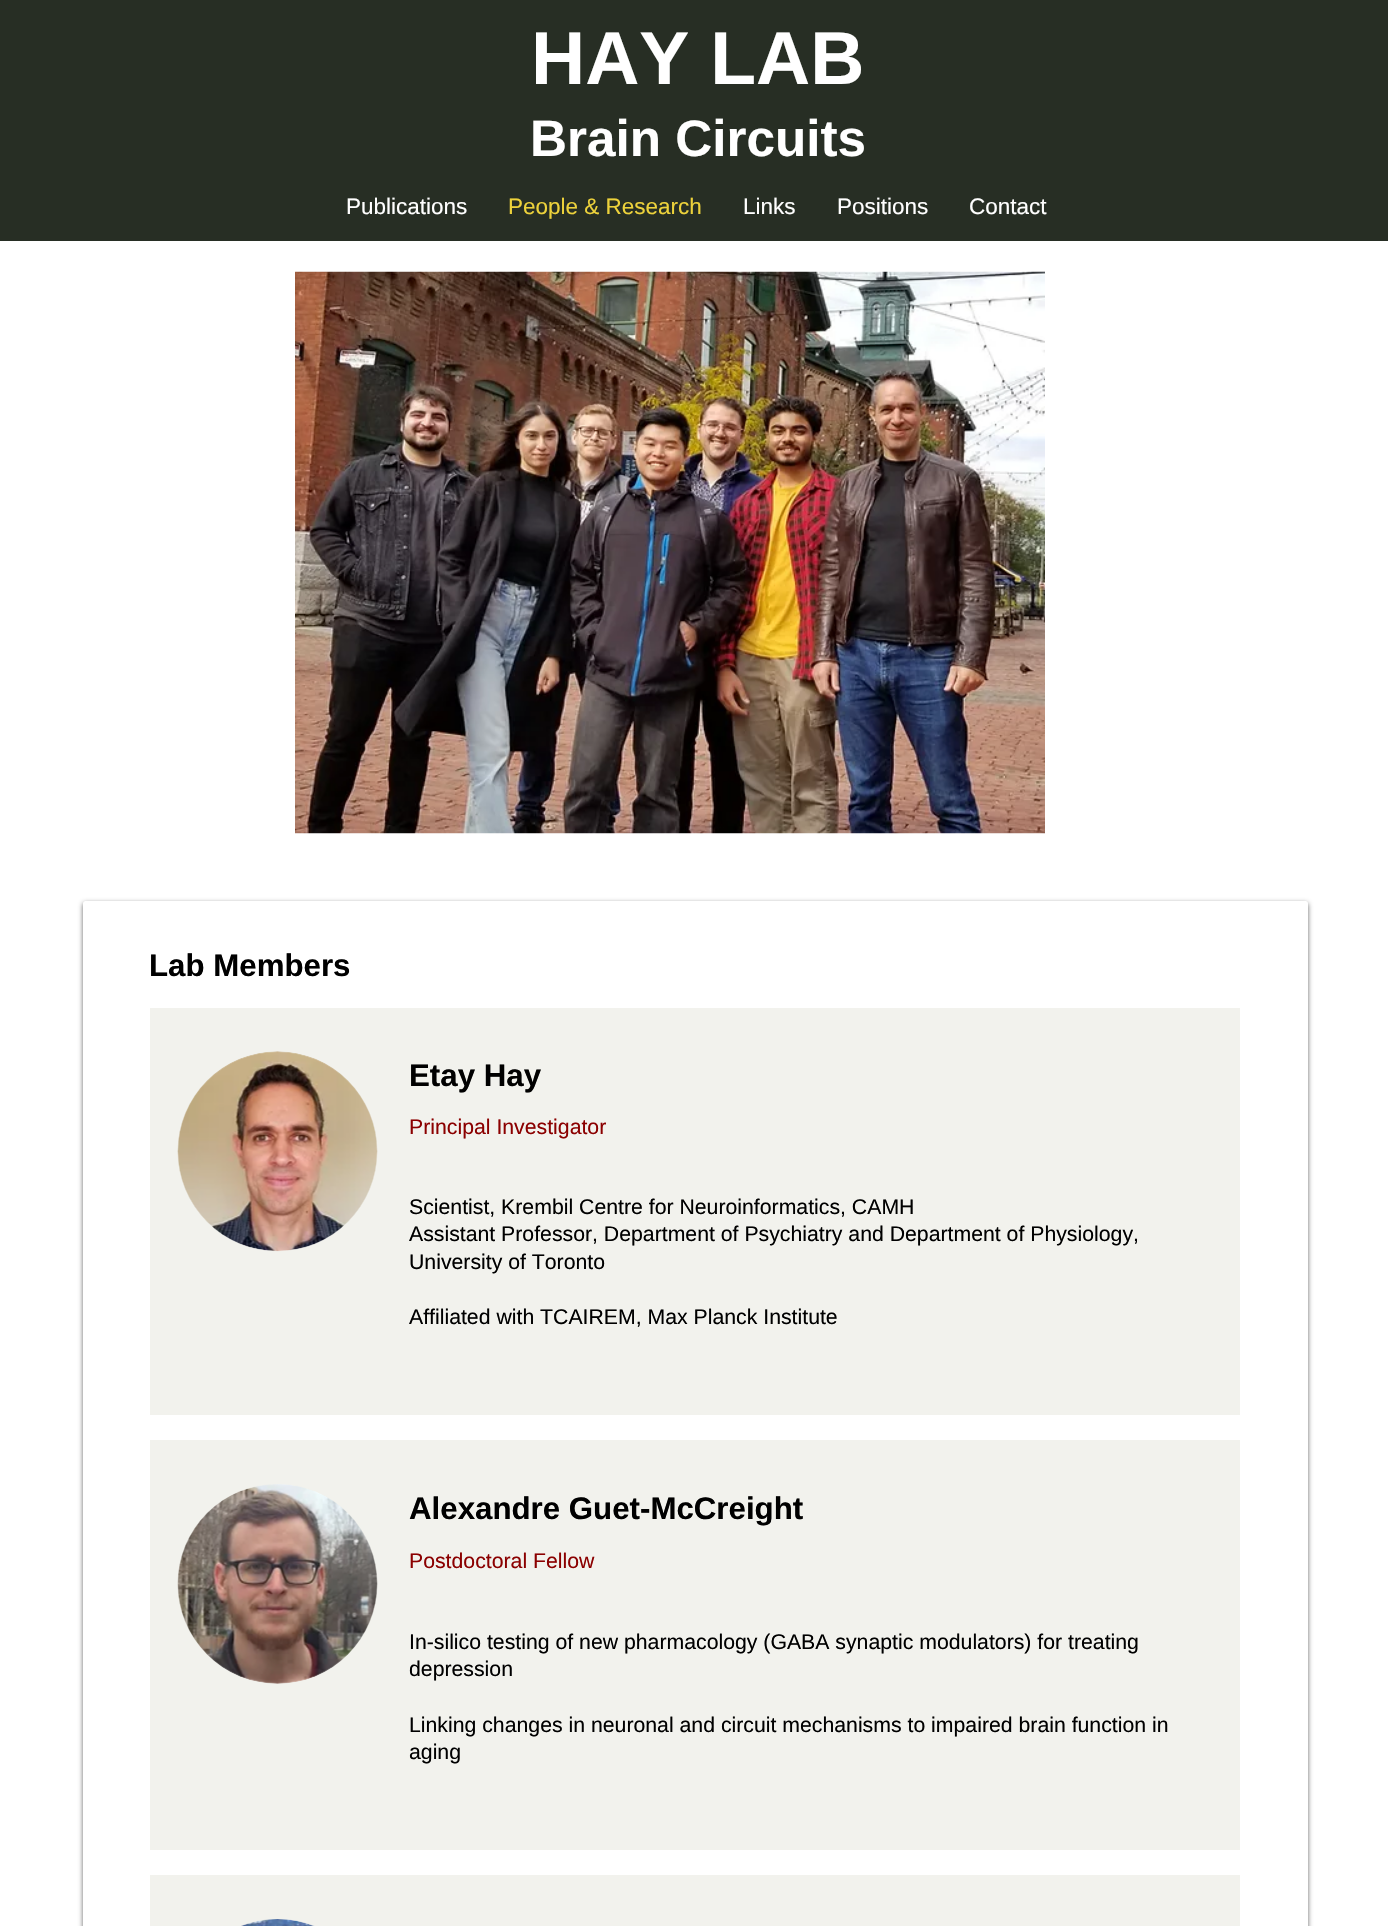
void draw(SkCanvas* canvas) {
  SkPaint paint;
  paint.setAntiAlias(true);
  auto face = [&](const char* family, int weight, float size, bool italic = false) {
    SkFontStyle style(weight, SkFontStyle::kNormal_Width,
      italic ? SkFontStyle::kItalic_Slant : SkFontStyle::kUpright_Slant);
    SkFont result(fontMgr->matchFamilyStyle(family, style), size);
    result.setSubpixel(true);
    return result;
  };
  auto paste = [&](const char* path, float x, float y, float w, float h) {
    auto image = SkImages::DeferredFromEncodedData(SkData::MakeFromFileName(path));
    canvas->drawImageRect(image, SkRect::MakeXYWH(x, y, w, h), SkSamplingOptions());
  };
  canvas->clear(0xffffffff);
  paint.setColor(0xff272e24);
  canvas->drawRect(SkRect::MakeXYWH(0, 0, 1388, 241), paint);
  paste("img/1.png", 295, 271, 750, 563);
  paint.setColor(0x99000000);
  paint.setMaskFilter(SkMaskFilter::MakeBlur(kNormal_SkBlurStyle, 2.5f));
  canvas->drawRoundRect(SkRect::MakeXYWH(83, 903, 1225, 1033), 2.5f, 2.5f, paint);
  paint.setMaskFilter(nullptr);
  paint.setColor(0xffffffff);
  canvas->drawRoundRect(SkRect::MakeXYWH(83, 901, 1225, 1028), 2.5f, 2.5f, paint);
  paint.setColor(0xfff2f2ed);
  canvas->drawRect(SkRect::MakeXYWH(150, 1008, 1090, 407), paint);
  paste("img/2.png", 177, 1051, 201, 201);
  canvas->drawRect(SkRect::MakeXYWH(150, 1440, 1090, 410), paint);
  paste("img/3.png", 177, 1484, 201, 200);
  canvas->drawRect(SkRect::MakeXYWH(150, 1875, 1090, 51), paint);
  paste("img/4.png", 241, 1919, 74, 7);
  auto f0 = face("Liberation Sans", 700, 75);
  paint.setColor(0xffffffff);
  canvas->drawString("HAY LAB", 531, 84, f0, paint);
  auto f1 = face("Liberation Sans", 700, 51.25f);
  canvas->drawString("Brain Circuits", 530, 156, f1, paint);
  auto f2 = face("Liberation Sans", 400, 22.5f);
  canvas->drawString("Publications", 346, 214, f2, paint);
  paint.setColor(0xffedd23b);
  canvas->drawString("People & Research", 508, 214, f2, paint);
  paint.setColor(0xffffffff);
  {
    const struct { const char* s; float x, y; } items[] = {
      {"Links", 743, 214},
      {"Positions", 837, 214},
      {"Contact", 969, 214},
    };
    for (auto [s, x, y] : items) {
      canvas->drawString(s, x, y, f2, paint);
    }
  }
  auto f3 = face("Liberation Sans", 700, 31.25f);
  paint.setColor(0xff000000);
  canvas->drawString("Lab Members", 149, 976, f3, paint);
  canvas->drawString("Etay Hay", 409, 1086, f3, paint);
  auto f4 = face("Liberation Sans", 400, 21.25f);
  paint.setColor(0xff8b0000);
  canvas->drawString("Principal Investigator", 409, 1134, f4, paint);
  paint.setColor(0xff000000);
  {
    const struct { const char* s; float x, y; } items[] = {
      {"Scientist, Krembil Centre for Neuroinformatics, CAMH", 409, 1214},
      {"Assistant Professor, Department of Psychiatry and Department of Physiology,", 409, 1241},
      {"University of Toronto", 409, 1269},
      {"Affiliated with TCAIREM, Max Planck Institute", 409, 1324},
    };
    for (auto [s, x, y] : items) {
      canvas->drawString(s, x, y, f4, paint);
    }
  }
  canvas->drawString("Alexandre Guet-McCreight", 409, 1519, f3, paint);
  paint.setColor(0xff8b0000);
  canvas->drawString("Postdoctoral Fellow", 409, 1568, f4, paint);
  paint.setColor(0xff000000);
  {
    const struct { const char* s; float x, y; } items[] = {
      {"In-silico testing of new pharmacology (GABA synaptic modulators) for treating", 409, 1649},
      {"depression", 409, 1676},
      {"Linking changes in neuronal and circuit mechanisms to impaired brain function in", 409, 1732},
      {"aging", 409, 1759},
    };
    for (auto [s, x, y] : items) {
      canvas->drawString(s, x, y, f4, paint);
    }
  }
}
